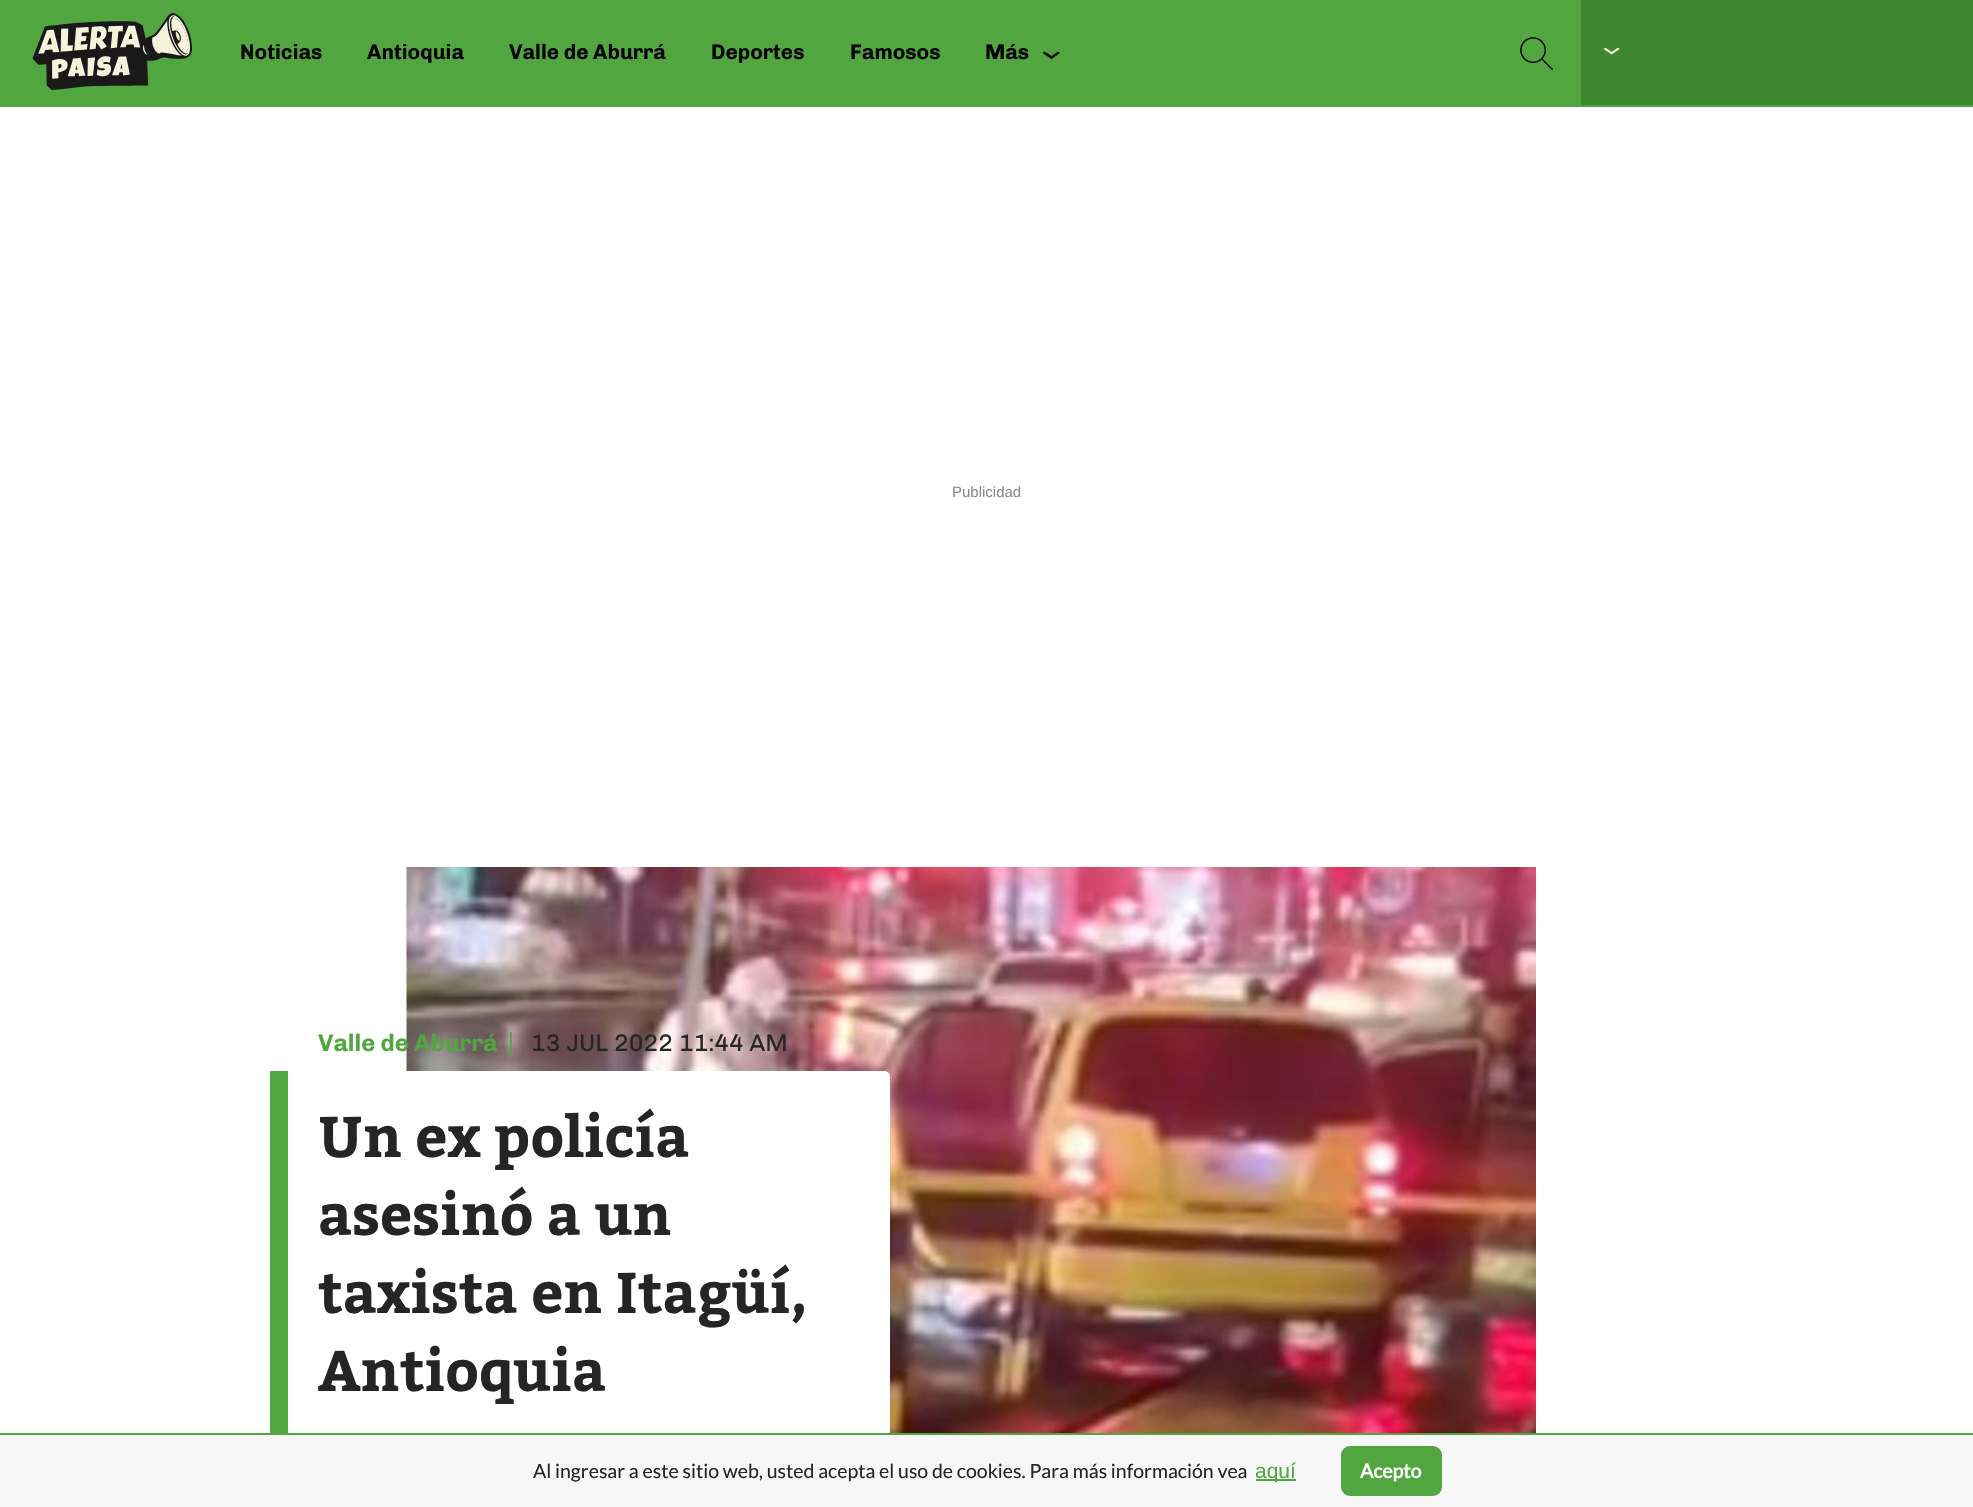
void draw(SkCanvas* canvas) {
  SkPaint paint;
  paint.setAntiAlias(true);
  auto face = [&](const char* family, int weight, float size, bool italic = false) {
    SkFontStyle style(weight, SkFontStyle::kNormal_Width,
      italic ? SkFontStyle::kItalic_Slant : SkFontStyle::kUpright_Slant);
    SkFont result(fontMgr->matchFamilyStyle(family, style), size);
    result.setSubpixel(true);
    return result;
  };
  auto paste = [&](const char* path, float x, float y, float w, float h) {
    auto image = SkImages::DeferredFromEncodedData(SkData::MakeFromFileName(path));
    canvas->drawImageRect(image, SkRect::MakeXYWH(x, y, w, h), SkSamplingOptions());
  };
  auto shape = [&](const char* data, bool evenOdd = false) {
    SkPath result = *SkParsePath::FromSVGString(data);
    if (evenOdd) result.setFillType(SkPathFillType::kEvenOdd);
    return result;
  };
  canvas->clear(0xffffffff);
  paint.setColor(0xff51a63f);
  canvas->drawRect(SkRect::MakeXYWH(0, 0, 1973, 107), paint);
  paste("img/1.png", 32, 13, 160, 77);
  paint.setColor(0xff000000);
  canvas->drawPath(shape("M1051.5 59L1042.5 53L1044.5 51.5L1051.5 56L1058 51.5L1060 53Z"), paint);
  paste("img/2.png", 1520, 37, 33, 34);
  paste("img/3.png", 406, 867, 1130, 566);
  paint.setColor(0xff51a63f);
  canvas->drawRect(SkRect::MakeXYWH(510, 1032, 2, 24), paint);
  paint.setColor(0xffffffff);
  canvas->drawPath(shape("M270 1071H884C887.5 1071 890 1073.5 890 1077V1437C890 1440.5 887.5 1443 884 1443H270Z"), paint);
  paint.setColor(0xff51a63f);
  canvas->drawRect(SkRect::MakeXYWH(270, 1071, 18, 362), paint);
  paint.setColor(0xff408830);
  canvas->drawRect(SkRect::MakeXYWH(1581, 0, 392, 105), paint);
  paste("img/4.png", 1603, 47, 17, 8);
  {
    const struct { float x, y, w, h; SkColor color; } items[] = {
      {0, 1435, 1973, 72, 0xfff7f7f7},
      {0, 1433, 1973, 2, 0xff51a63f},
      {1256, 1479, 40, 2, 0xff51a63f},
    };
    for (auto [x, y, w, h, color] : items) {
      paint.setColor(color);
      canvas->drawRect(SkRect::MakeXYWH(x, y, w, h), paint);
    }
  }
  canvas->drawRoundRect(SkRect::MakeXYWH(1341, 1446, 101, 50), 9, 9, paint);
  auto f0 = face("Chivo", 700, 21);
  paint.setColor(0xff000000);
  {
    const struct { const char* s; float x, y; } items[] = {
      {"Noticias", 240, 59},
      {"Antioquia", 367, 59},
      {"Valle de Aburrá", 509, 59},
      {"Deportes", 711, 59},
      {"Famosos", 850, 59},
      {"Más", 985, 59},
    };
    for (auto [s, x, y] : items) {
      canvas->drawString(s, x, y, f0, paint);
    }
  }
  auto f1 = face("Liberation Sans", 400, 15);
  paint.setColor(0xff8b8b8b);
  canvas->drawString("Publicidad", 952, 497, f1, paint);
  auto f2 = face("Chivo", 700, 24);
  paint.setColor(0xff51a63f);
  canvas->drawString("Valle de Aburrá", 318, 1051, f2, paint);
  auto f3 = face("Chivo", 400, 24);
  paint.setColor(0xff252525);
  canvas->drawString("13 JUL 2022 11:44 AM", 531, 1051, f3, paint);
  auto f4 = face("Kadwa", 700, 57);
  {
    const struct { const char* s; float x, y; } items[] = {
      {"Un ex policía", 318, 1157},
      {"asesinó a un", 318, 1235},
      {"taxista en Itagüí,", 318, 1313},
      {"Antioquia", 318, 1391},
    };
    for (auto [s, x, y] : items) {
      canvas->drawString(s, x, y, f4, paint);
    }
  }
  auto f5 = face("Lato", 400, 19.5f);
  canvas->drawString("Al ingresar a este sitio web, usted acepta el uso de cookies. Para más información vea", 533, 1478, f5, paint);
  auto f6 = face("Liberation Sans", 400, 21);
  paint.setColor(0xff51a63f);
  canvas->drawString("aquí", 1255, 1478, f6, paint);
  auto f7 = face("Lato", 700, 19.5f);
  paint.setColor(0xffffffff);
  canvas->drawString("Acepto", 1360, 1478, f7, paint);
}
